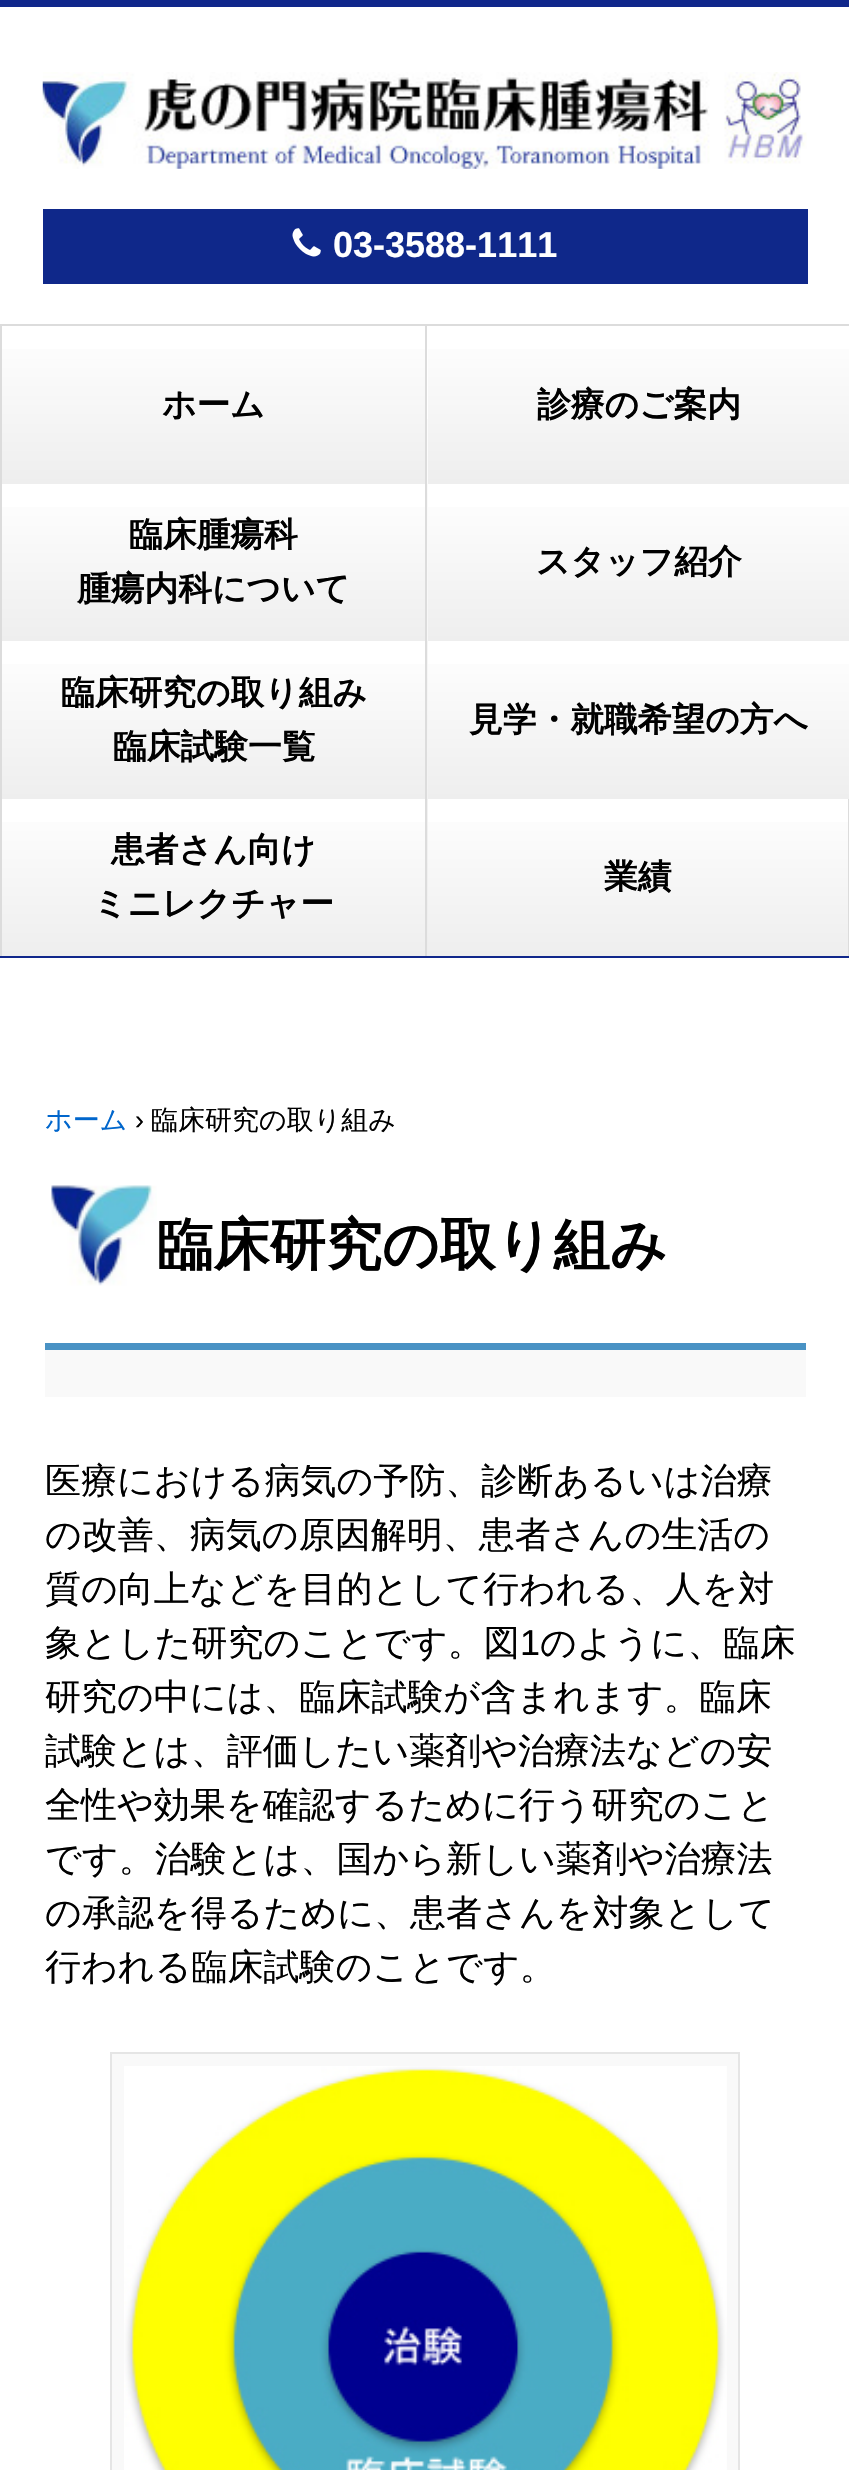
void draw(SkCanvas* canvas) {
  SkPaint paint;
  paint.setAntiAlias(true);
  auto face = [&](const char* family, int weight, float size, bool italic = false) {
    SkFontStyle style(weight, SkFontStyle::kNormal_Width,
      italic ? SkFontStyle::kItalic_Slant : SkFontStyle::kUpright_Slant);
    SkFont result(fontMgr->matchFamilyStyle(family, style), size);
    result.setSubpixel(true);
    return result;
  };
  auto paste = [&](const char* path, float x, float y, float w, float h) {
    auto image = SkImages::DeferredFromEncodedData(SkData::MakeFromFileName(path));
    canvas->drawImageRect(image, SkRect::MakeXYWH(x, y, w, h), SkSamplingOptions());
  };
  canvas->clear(0xffffffff);
  paint.setColor(0xff10278b);
  canvas->drawRect(SkRect::MakeXYWH(0, 0, 849, 7), paint);
  paste("img/1.png", 42, 72, 765, 97);
  paint.setColor(0xff0f288a);
  canvas->drawRect(SkRect::MakeXYWH(43, 209, 765, 75), paint);
  paste("img/2.png", 292, 228, 29, 29);
  {
    const SkColor colors[] = {0xffffffff, 0xffeeeeee};
    const float stops[] = {0, 1};
    const SkPoint ends[] = {{425, 326}, {425, 956}};
    paint.setShader(SkGradientShader::MakeLinear(ends, colors, stops, 2, SkTileMode::kClamp));
    paint.setAlpha(255);
  }
  canvas->drawRect(SkRect::MakeXYWH(427, 419, 1, 537), paint);
  paint.setShader(nullptr);
  {
    const struct { float x, y, w, h; SkColor color; } items[] = {
      {0, 324, 849, 2, 0xffdcdcdc},
      {0, 956, 849, 2, 0xff10278b},
      {0, 326, 2, 630, 0xffdcdcdc},
    };
    for (auto [x, y, w, h, color] : items) {
      paint.setColor(color);
      canvas->drawRect(SkRect::MakeXYWH(x, y, w, h), paint);
    }
  }
  {
    const SkColor colors[] = {0xffffffff, 0xffeeeeee};
    const float stops[] = {0, 1};
    const SkPoint ends[] = {{214, 326}, {214, 484}};
    paint.setShader(SkGradientShader::MakeLinear(ends, colors, stops, 2, SkTileMode::kClamp));
    paint.setAlpha(255);
  }
  canvas->drawRect(SkRect::MakeXYWH(2, 349, 423, 135), paint);
  paint.setShader(nullptr);
  paint.setColor(0xffdcdcdc);
  canvas->drawRect(SkRect::MakeXYWH(425, 326, 2, 630), paint);
  {
    const SkColor colors[] = {0xffffffff, 0xffeeeeee};
    const float stops[] = {0, 1};
    const SkPoint ends[] = {{639, 326}, {639, 484}};
    paint.setShader(SkGradientShader::MakeLinear(ends, colors, stops, 2, SkTileMode::kClamp));
    paint.setAlpha(255);
  }
  canvas->drawRect(SkRect::MakeXYWH(428, 349, 421, 135), paint);
  {
    const SkColor colors[] = {0xffffffff, 0xffeeeeee};
    const float stops[] = {0, 1};
    const SkPoint ends[] = {{214, 484}, {214, 641}};
    paint.setShader(SkGradientShader::MakeLinear(ends, colors, stops, 2, SkTileMode::kClamp));
    paint.setAlpha(255);
  }
  canvas->drawRect(SkRect::MakeXYWH(2, 507, 423, 134), paint);
  {
    const SkColor colors[] = {0xffffffff, 0xffeeeeee};
    const float stops[] = {0, 1};
    const SkPoint ends[] = {{639, 484}, {639, 641}};
    paint.setShader(SkGradientShader::MakeLinear(ends, colors, stops, 2, SkTileMode::kClamp));
    paint.setAlpha(255);
  }
  canvas->drawRect(SkRect::MakeXYWH(428, 507, 421, 134), paint);
  {
    const SkColor colors[] = {0xffffffff, 0xffeeeeee};
    const float stops[] = {0, 1};
    const SkPoint ends[] = {{214, 641}, {214, 799}};
    paint.setShader(SkGradientShader::MakeLinear(ends, colors, stops, 2, SkTileMode::kClamp));
    paint.setAlpha(255);
  }
  canvas->drawRect(SkRect::MakeXYWH(2, 664, 423, 135), paint);
  {
    const SkColor colors[] = {0xffffffff, 0xffeeeeee};
    const float stops[] = {0, 1};
    const SkPoint ends[] = {{639, 641}, {639, 799}};
    paint.setShader(SkGradientShader::MakeLinear(ends, colors, stops, 2, SkTileMode::kClamp));
    paint.setAlpha(255);
  }
  canvas->drawRect(SkRect::MakeXYWH(428, 664, 421, 135), paint);
  {
    const SkColor colors[] = {0xffffffff, 0xffeeeeee};
    const float stops[] = {0, 1};
    const SkPoint ends[] = {{214, 799}, {214, 956}};
    paint.setShader(SkGradientShader::MakeLinear(ends, colors, stops, 2, SkTileMode::kClamp));
    paint.setAlpha(255);
  }
  canvas->drawRect(SkRect::MakeXYWH(2, 822, 423, 134), paint);
  paint.setShader(nullptr);
  paint.setColor(0xffdcdcdc);
  canvas->drawRect(SkRect::MakeXYWH(848, 799, 1, 157), paint);
  {
    const SkColor colors[] = {0xffffffff, 0xffeeeeee};
    const float stops[] = {0, 1};
    const SkPoint ends[] = {{638, 799}, {638, 956}};
    paint.setShader(SkGradientShader::MakeLinear(ends, colors, stops, 2, SkTileMode::kClamp));
    paint.setAlpha(255);
  }
  canvas->drawRect(SkRect::MakeXYWH(428, 822, 420, 134), paint);
  paste("img/3.png", 51, 1185, 106, 101);
  paint.setShader(nullptr);
  paint.setColor(0xfff9f9f9);
  canvas->drawRect(SkRect::MakeXYWH(45, 1350, 761, 47), paint);
  paint.setColor(0xff4992c4);
  canvas->drawRect(SkRect::MakeXYWH(45, 1343, 761, 7), paint);
  paint.setColor(0xfff9f9f9);
  canvas->drawRect(SkRect::MakeXYWH(111, 2053, 628, 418), paint);
  paint.setStroke(true);
  paint.setStrokeWidth(2);
  paint.setColor(0xffe5e5e5);
  canvas->drawRect(SkRect::MakeXYWH(111, 2053, 628, 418), paint);
  paste("img/4.png", 124, 2066, 603, 404);
  auto f0 = face("Liberation Sans", 700, 36);
  paint.setStroke(false);
  paint.setColor(0xffffffff);
  canvas->drawString("03-3588-1111", 333, 257, f0, paint);
  auto f1 = face("WenQuanYi Zen Hei", 700, 33.75f);
  paint.setColor(0xff000000);
  {
    const struct { const char* s; float x, y; } items[] = {
      {"ホーム", 162, 416},
      {"診療のご案内", 537, 416},
      {"臨床腫瘍科", 129, 546},
      {"腫瘍内科について", 77, 600},
      {"スタッフ紹介", 536, 573},
      {"臨床研究の取り組み", 61, 704},
      {"臨床試験一覧", 113, 758},
      {"見学・就職希望の方へ", 469, 731},
      {"患者さん向け", 111, 861},
      {"ミニレクチャー", 93, 915},
      {"業績", 604, 888},
    };
    for (auto [s, x, y] : items) {
      canvas->drawString(s, x, y, f1, paint);
    }
  }
  auto f2 = face("WenQuanYi Zen Hei", 500, 27);
  paint.setColor(0xff0066cc);
  canvas->drawString("ホーム", 45, 1129, f2, paint);
  auto f3 = face("Liberation Sans", 400, 27);
  paint.setColor(0xff000000);
  canvas->drawString("›", 135, 1129, f3, paint);
  canvas->drawString("臨床研究の取り組み", 151, 1129, f2, paint);
  auto f4 = face("WenQuanYi Zen Hei", 700, 56.25f);
  canvas->drawString("臨床研究の取り組み", 157, 1264, f4, paint);
  auto f5 = face("WenQuanYi Zen Hei", 500, 36);
  {
    const struct { const char* s; float x, y; } items[] = {
      {"医療における病気の予防、診断あるいは治療", 45, 1493},
      {"の改善、病気の原因解明、患者さんの生活の", 45, 1547},
      {"質の向上などを目的として行われる、人を対", 45, 1601},
      {"象とした研究のことです。図", 45, 1655},
    };
    for (auto [s, x, y] : items) {
      canvas->drawString(s, x, y, f5, paint);
    }
  }
  auto f6 = face("Liberation Sans", 400, 36);
  canvas->drawString("1", 520, 1655, f6, paint);
  {
    const struct { const char* s; float x, y; } items[] = {
      {"のように、臨床", 540, 1655},
      {"研究の中には、臨床試験が含まれます。臨床", 45, 1709},
      {"試験とは、評価したい薬剤や治療法などの安", 45, 1763},
      {"全性や効果を確認するために行う研究のこと", 45, 1817},
      {"です。治験とは、国から新しい薬剤や治療法", 45, 1871},
      {"の承認を得るために、患者さんを対象として", 45, 1925},
      {"行われる臨床試験のことです。", 45, 1979},
    };
    for (auto [s, x, y] : items) {
      canvas->drawString(s, x, y, f5, paint);
    }
  }
}
